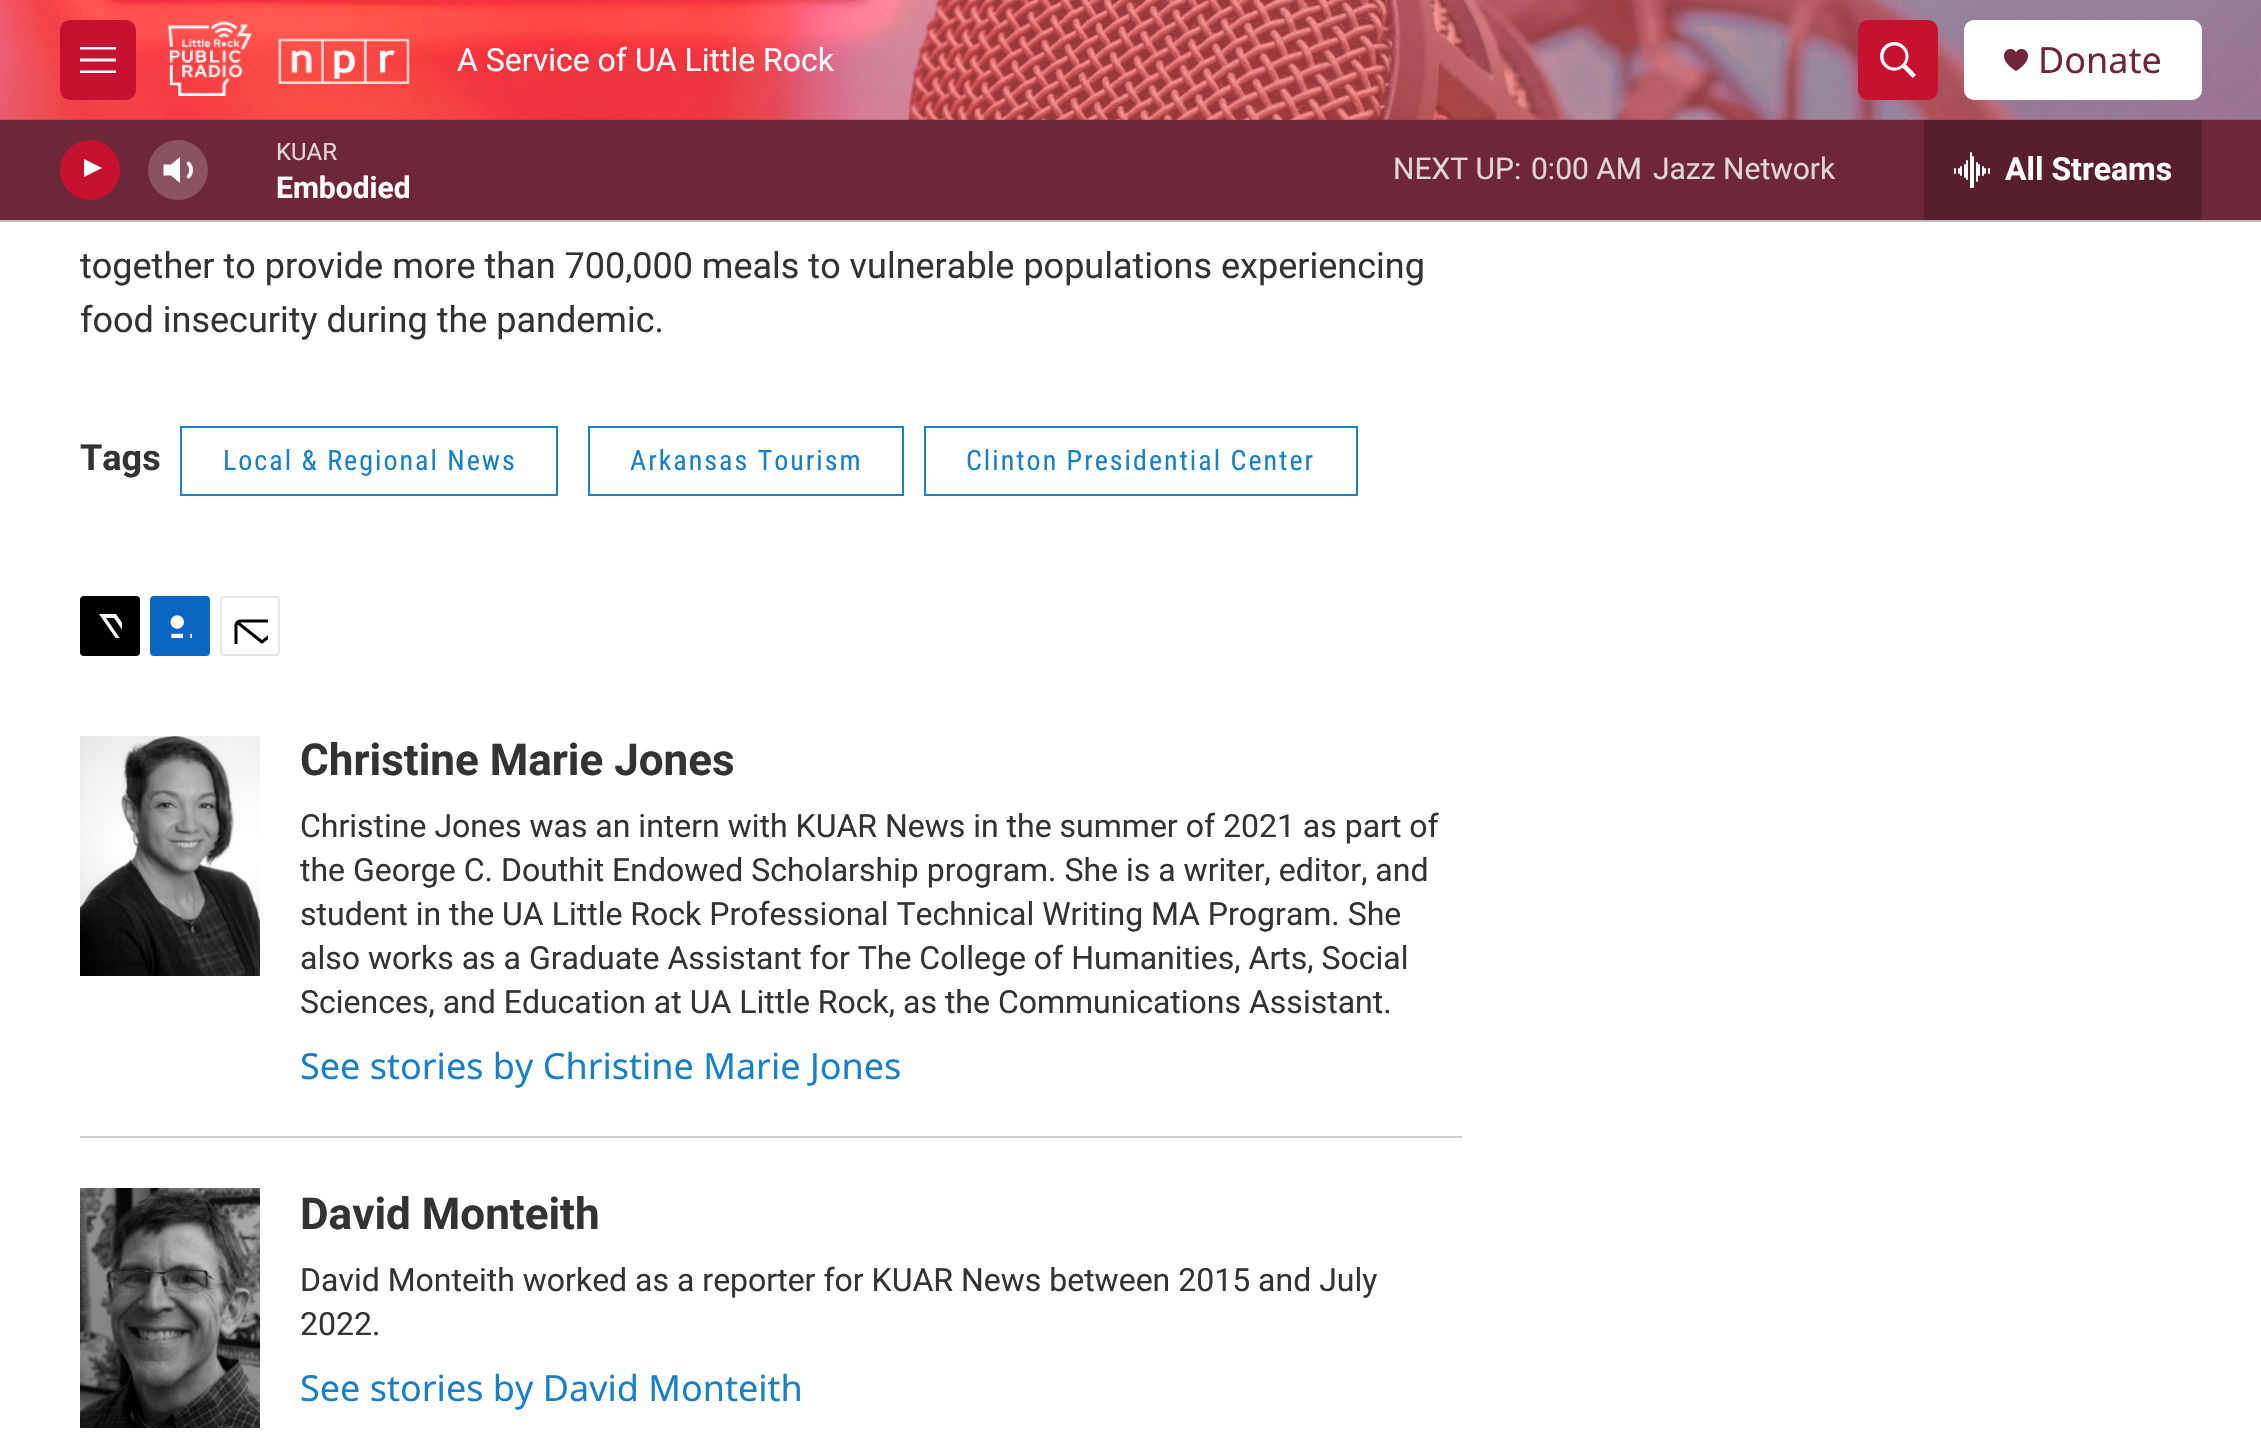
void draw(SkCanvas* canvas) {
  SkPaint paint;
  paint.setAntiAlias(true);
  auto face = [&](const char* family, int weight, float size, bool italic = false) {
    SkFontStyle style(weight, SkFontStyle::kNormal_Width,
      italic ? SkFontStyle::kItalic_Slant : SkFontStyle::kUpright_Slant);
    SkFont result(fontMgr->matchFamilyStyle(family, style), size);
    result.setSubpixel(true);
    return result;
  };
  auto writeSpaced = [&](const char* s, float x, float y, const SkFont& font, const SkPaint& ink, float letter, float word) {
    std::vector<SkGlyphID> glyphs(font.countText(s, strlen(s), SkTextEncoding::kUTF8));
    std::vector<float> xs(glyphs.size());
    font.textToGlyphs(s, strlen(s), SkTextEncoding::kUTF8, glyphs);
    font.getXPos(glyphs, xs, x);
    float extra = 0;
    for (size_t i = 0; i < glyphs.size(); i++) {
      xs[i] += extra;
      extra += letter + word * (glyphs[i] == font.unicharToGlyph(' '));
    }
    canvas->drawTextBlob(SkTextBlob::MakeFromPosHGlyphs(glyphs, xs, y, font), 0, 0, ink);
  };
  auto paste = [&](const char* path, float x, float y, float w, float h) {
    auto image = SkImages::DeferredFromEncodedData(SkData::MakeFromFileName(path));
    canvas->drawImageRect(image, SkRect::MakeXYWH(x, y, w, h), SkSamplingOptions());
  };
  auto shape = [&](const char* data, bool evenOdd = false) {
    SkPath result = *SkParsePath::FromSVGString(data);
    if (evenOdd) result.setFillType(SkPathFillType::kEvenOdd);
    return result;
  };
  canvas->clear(0xffffffff);
  paint.setColor(0xff6e2639);
  canvas->drawRect(SkRect::MakeXYWH(0, 119, 2261, 101), paint);
  paint.setColor(0xffbdbdbd);
  canvas->drawRect(SkRect::MakeXYWH(0, 220, 2261, 2), paint);
  paste("img/1.png", 0, 0, 2261, 120);
  paint.setColor(0xffc41230);
  canvas->drawRoundRect(SkRect::MakeXYWH(60, 20, 76, 80), 10, 10, paint);
  paint.setColor(0xffffffff);
  canvas->drawPath(shape("M80 61.5V58.5H116V61.5ZM80 49.5V47H116V49.5ZM80 73V70.5H116V73Z", true), paint);
  paste("img/2.png", 167, 21, 243, 75);
  paint.setColor(0xffc41230);
  canvas->drawRoundRect(SkRect::MakeXYWH(1858, 20, 80, 80), 10, 10, paint);
  paste("img/3.png", 1880, 42, 36, 36);
  paint.setColor(0xffffffff);
  canvas->drawRoundRect(SkRect::MakeXYWH(1964, 20, 238, 80), 10, 10, paint);
  paste("img/4.png", 2004, 49, 24, 22);
  paint.setColor(0xffc41230);
  canvas->drawCircle(90, 170, 30, paint);
  canvas->save();
  canvas->clipRect(SkRect::MakeXYWH(84, 156, 23, 30));
  paint.setColor(0xffffffff);
  canvas->drawPath(shape("M83 158.5L102 168L83 177.5Z"), paint);
  canvas->restore();
  canvas->drawPath(shape("M180 157L171 164.5H163.5V175.5H171L180 183Z"), paint);
  paint.setStroke(true);
  paint.setStrokeWidth(3.7f);
  paint.setStrokeCap(SkPaint::kRound_Cap);
  paint.setStrokeJoin(SkPaint::kRound_Join);
  canvas->drawPath(shape("M188.5 163.5C192 167 192 173 188.5 176.5"), paint);
  paint.setStroke(false);
  paint.setColor(0x33ffffff);
  canvas->drawCircle(178, 170, 30, paint);
  paint.setColor(0xff581e2e);
  canvas->drawRect(SkRect::MakeXYWH(1924, 120, 278, 100), paint);
  paste("img/5.png", 1954, 152, 36, 36);
  paint.setStroke(true);
  paint.setStrokeWidth(2);
  paint.setStrokeCap(SkPaint::kButt_Cap);
  paint.setStrokeJoin(SkPaint::kMiter_Join);
  paint.setColor(0xff1a7fc3);
  canvas->drawRect(SkRect::MakeXYWH(181, 427, 376, 68), paint);
  canvas->drawRect(SkRect::MakeXYWH(589, 427, 314, 68), paint);
  canvas->drawRect(SkRect::MakeXYWH(925, 427, 432, 68), paint);
  paint.setStroke(false);
  paint.setColor(0xff000000);
  canvas->drawRoundRect(SkRect::MakeXYWH(80, 596, 60, 60), 4, 4, paint);
  canvas->save();
  canvas->clipRect(SkRect::MakeXYWH(98, 614, 24, 24));
  paint.setColor(0xffffffff);
  canvas->drawPath(shape("M134 639L140 648C140 650 141 653 139 654L114 618H106L132 656H127L124 651L120 656H114L122 647L99 614H116L131 636L140 626V632Z"), paint);
  canvas->restore();
  paint.setColor(0xff0a66c1);
  canvas->drawRoundRect(SkRect::MakeXYWH(150, 596, 60, 60), 4, 4, paint);
  paste("img/6.png", 170, 615, 22, 23);
  paint.setStroke(true);
  paint.setColor(0xffe6e6e6);
  canvas->drawRoundRect(SkRect::MakeXYWH(221, 597, 58, 58), 3, 3, paint);
  canvas->save();
  canvas->clipRect(SkRect::MakeXYWH(232, 608, 36, 36));
  paint.setStrokeWidth(3);
  paint.setStrokeCap(SkPaint::kRound_Cap);
  paint.setStrokeJoin(SkPaint::kRound_Join);
  paint.setColor(0xff000000);
  canvas->drawPath(shape("M288 652C288 654 286 655.5 284 655.5H240C238 655.5 236 654 236 652V625C236 623 238 621 240 621H284C286 621 288 623 288 625ZM286.5 622.5L262 642L237.5 622.5"), paint);
  canvas->restore();
  paint.setStroke(false);
  paint.setColor(0xffcccccc);
  canvas->drawRect(SkRect::MakeXYWH(80, 1136, 1382, 2), paint);
  paste("img/7.png", 80, 736, 180, 240);
  paste("img/8.png", 80, 1188, 180, 240);
  auto f0 = face("Roboto", 400, 32);
  paint.setColor(0xffffffff);
  canvas->drawString("A Service of UA Little Rock", 457, 71, f0, paint);
  auto f1 = face("Noto Sans", 400, 36);
  paint.setColor(0xff6e2639);
  canvas->drawString("Donate", 2038, 73, f1, paint);
  auto f2 = face("Roboto", 400, 24);
  paint.setColor(0xffe2d4d7);
  canvas->drawString("KUAR", 276, 160, f2, paint);
  auto f3 = face("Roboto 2", 700, 30);
  paint.setColor(0xffffffff);
  canvas->drawString("Embodied", 276, 198, f3, paint);
  auto f4 = face("Roboto", 400, 30);
  paint.setColor(0xffe2d4d7);
  {
    const struct { const char* s; float x, y; } items[] = {
      {"NEXT UP:", 1393, 179},
      {"0:00 AM", 1531, 179},
      {"Jazz Network", 1653, 179},
    };
    for (auto [s, x, y] : items) {
      canvas->drawString(s, x, y, f4, paint);
    }
  }
  auto f5 = face("Roboto 2", 700, 32);
  paint.setColor(0xffffffff);
  canvas->drawString("All Streams", 2005, 180, f5, paint);
  auto f6 = face("Roboto", 400, 36);
  paint.setColor(0xff333333);
  canvas->drawString("together to provide more than 700,000 meals to vulnerable populations experiencing", 80, 278, f6, paint);
  canvas->drawString("food insecurity during the pandemic.", 80, 332, f6, paint);
  auto f7 = face("Roboto", 700, 36);
  canvas->drawString("Tags", 80, 470, f7, paint);
  auto f8 = face("Roboto Condensed", 400, 28);
  paint.setColor(0xff1a7fc3);
  {
    const struct { const char* s; float x, y; } items[] = {
      {"Local & Regional News", 223, 470},
      {"Arkansas Tourism", 630, 470},
      {"Clinton Presidential Center", 966, 470},
    };
    for (auto [s, x, y] : items) {
      writeSpaced(s, x, y, f8, paint, 2, 0);
    }
  }
  auto f9 = face("Roboto", 700, 44);
  paint.setColor(0xff333333);
  canvas->drawString("Christine Marie Jones", 300, 775, f9, paint);
  {
    const struct { const char* s; float x, y; } items[] = {
      {"Christine Jones was an intern with KUAR News in the summer of 2021 as part of", 300, 837},
      {"the George C. Douthit Endowed Scholarship program. She is a writer, editor, and", 300, 881},
      {"student in the UA Little Rock Professional Technical Writing MA Program. She", 300, 925},
      {"also works as a Graduate Assistant for The College of Humanities, Arts, Social", 300, 969},
      {"Sciences, and Education at UA Little Rock, as the Communications Assistant.", 300, 1013},
    };
    for (auto [s, x, y] : items) {
      canvas->drawString(s, x, y, f0, paint);
    }
  }
  paint.setColor(0xff1a7fc3);
  canvas->drawString("See stories by Christine Marie Jones", 300, 1079, f1, paint);
  paint.setColor(0xff333333);
  canvas->drawString("David Monteith", 300, 1229, f9, paint);
  canvas->drawString("David Monteith worked as a reporter for KUAR News between 2015 and July", 300, 1291, f0, paint);
  canvas->drawString("2022.", 300, 1335, f0, paint);
  paint.setColor(0xff1a7fc3);
  canvas->drawString("See stories by David Monteith", 300, 1401, f1, paint);
}
